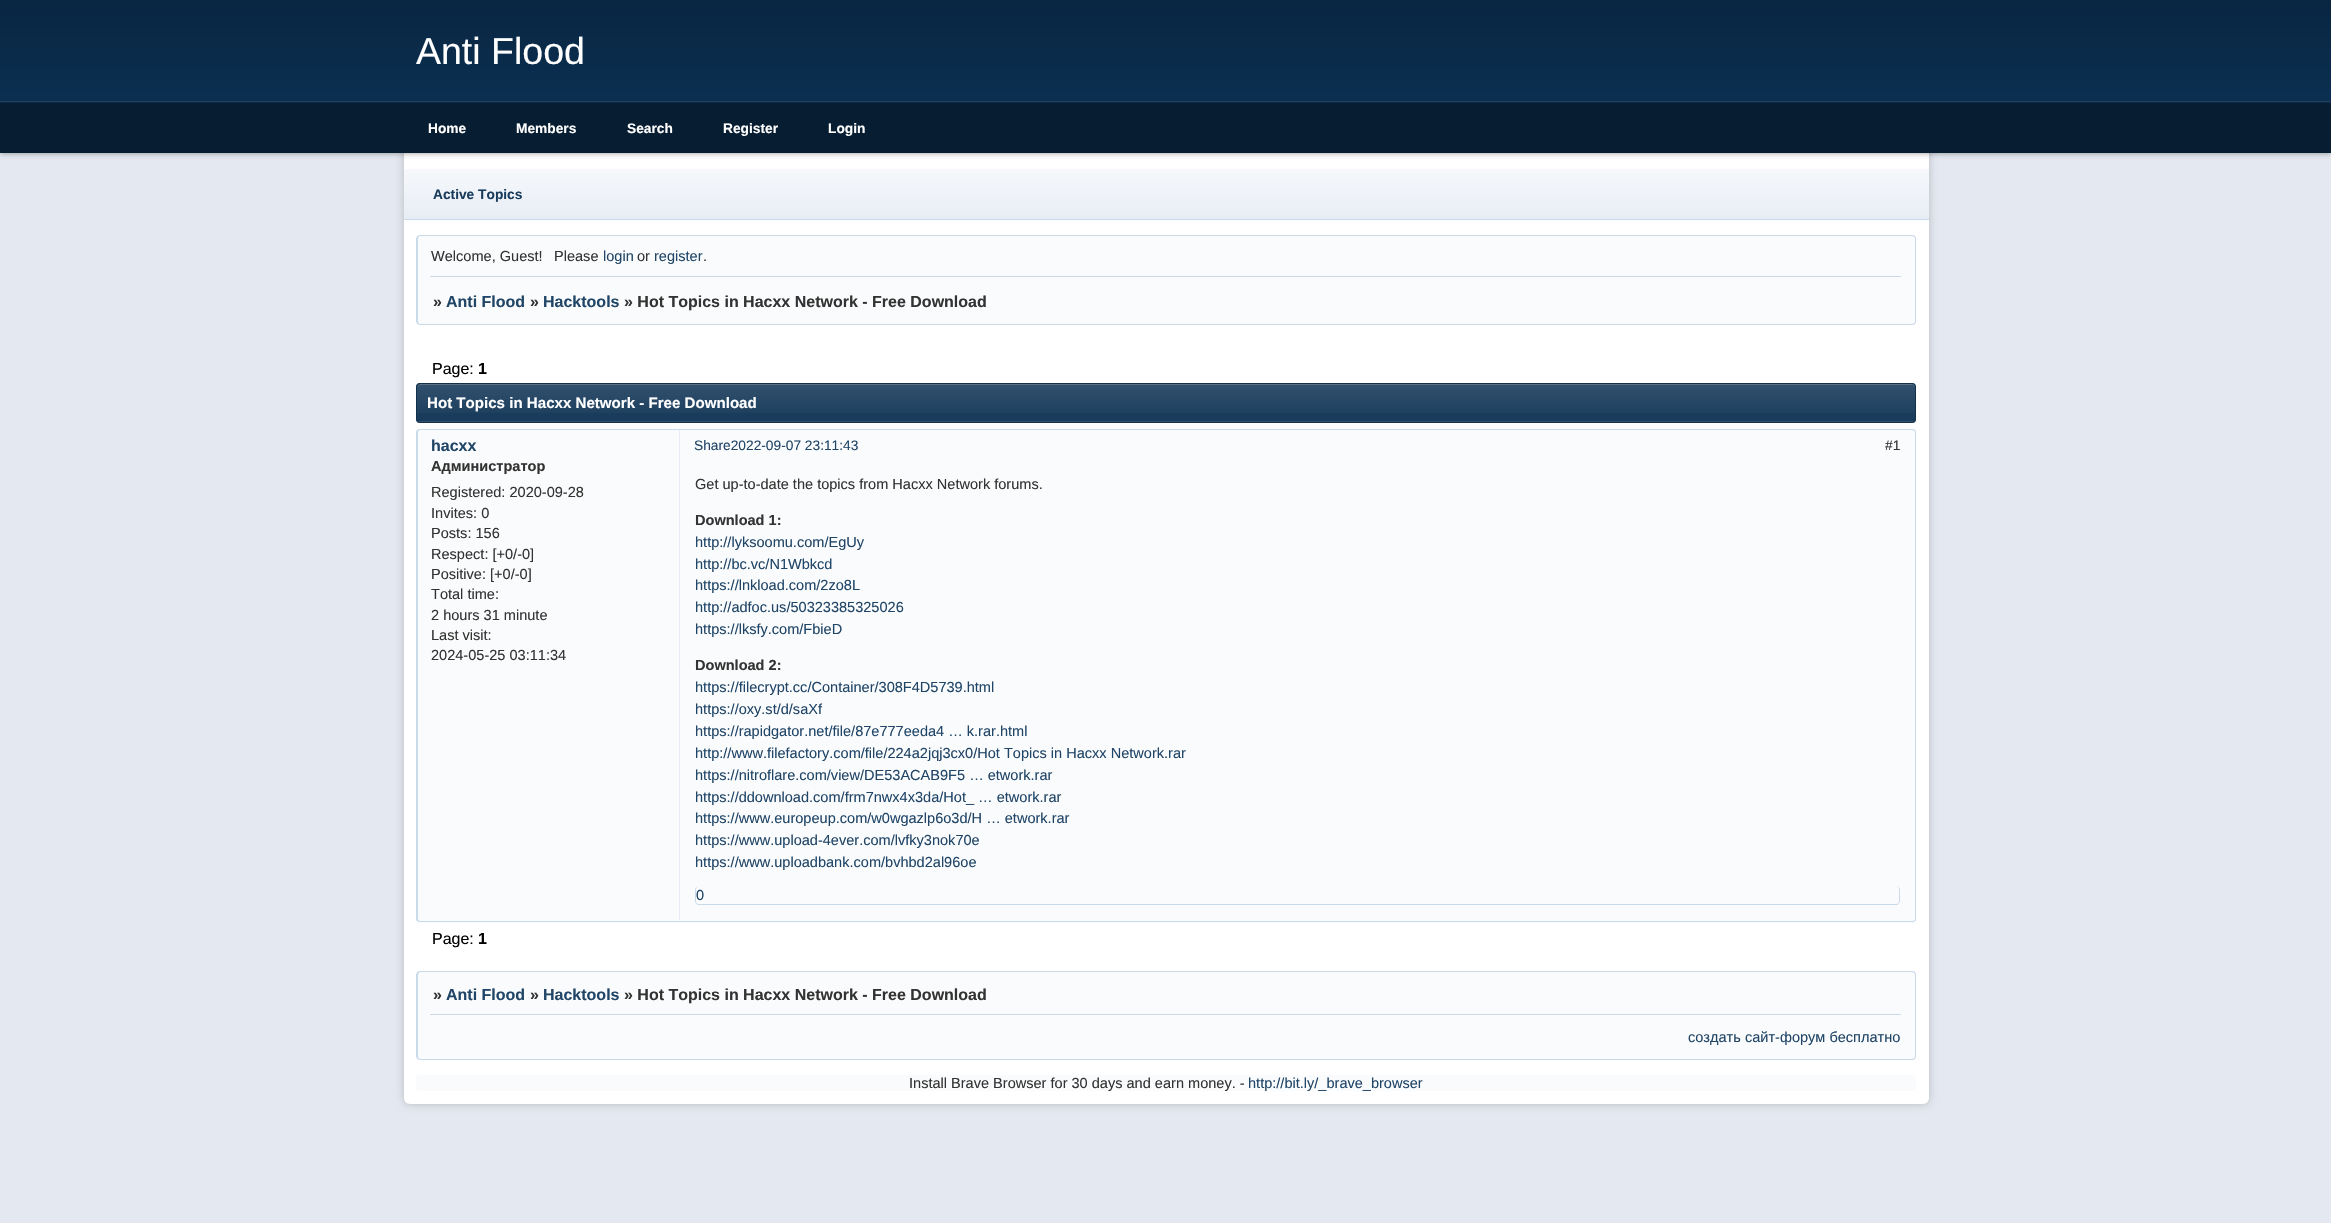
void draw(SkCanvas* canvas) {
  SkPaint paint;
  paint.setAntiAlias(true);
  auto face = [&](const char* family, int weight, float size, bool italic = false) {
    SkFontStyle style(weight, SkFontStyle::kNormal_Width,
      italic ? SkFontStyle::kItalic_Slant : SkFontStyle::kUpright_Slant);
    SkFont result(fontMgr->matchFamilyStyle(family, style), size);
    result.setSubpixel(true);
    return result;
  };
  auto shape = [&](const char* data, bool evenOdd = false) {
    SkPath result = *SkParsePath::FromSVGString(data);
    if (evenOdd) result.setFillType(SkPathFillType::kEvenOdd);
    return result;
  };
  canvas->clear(0xffe4e8f0);
  paint.setColor(0x33000000);
  paint.setMaskFilter(SkMaskFilter::MakeBlur(kNormal_SkBlurStyle, 4));
  canvas->drawRoundRect(SkRect::MakeXYWH(404, 0, 1525, 1104), 6, 6, paint);
  paint.setMaskFilter(nullptr);
  paint.setColor(0xffffffff);
  canvas->drawRoundRect(SkRect::MakeXYWH(404, 0, 1525, 1104), 6, 6, paint);
  {
    const SkColor colors[] = {0xff092642, 0xff0b3052};
    const float stops[] = {0, 0.7f};
    const SkPoint ends[] = {{1166, 0}, {1166, 153}};
    paint.setShader(SkGradientShader::MakeLinear(ends, colors, stops, 2, SkTileMode::kClamp));
    paint.setAlpha(255);
  }
  canvas->drawRect(SkRect::MakeXYWH(0, 0, 2331, 153), paint);
  canvas->save();
  canvas->clipPath(shape("M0 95H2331V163H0ZM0 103H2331V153H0Z", true), true);
  paint.setShader(nullptr);
  paint.setColor(0x4d000000);
  paint.setMaskFilter(SkMaskFilter::MakeBlur(kNormal_SkBlurStyle, 2.5f));
  canvas->drawRect(SkRect::MakeXYWH(0, 104, 2331, 50), paint);
  paint.setMaskFilter(nullptr);
  canvas->restore();
  paint.setColor(0xff1e3e5b);
  canvas->drawRect(SkRect::MakeXYWH(0, 101, 2331, 1), paint);
  paint.setColor(0x66000000);
  canvas->drawRect(SkRect::MakeXYWH(0, 103, 2331, 50), paint);
  {
    const SkColor colors[] = {0xfff6f8fb, 0xffe8edf5};
    const float stops[] = {0, 1};
    const SkPoint ends[] = {{1166, 169}, {1166, 219}};
    paint.setShader(SkGradientShader::MakeLinear(ends, colors, stops, 2, SkTileMode::kClamp));
    paint.setAlpha(255);
  }
  canvas->drawRect(SkRect::MakeXYWH(404, 169, 1525, 50), paint);
  paint.setShader(nullptr);
  paint.setColor(0xffc9daeb);
  canvas->drawRect(SkRect::MakeXYWH(404, 219, 1525, 1), paint);
  paint.setColor(0xfffafbfc);
  canvas->drawPath(shape("M420 235H1912C1914 235 1916 237 1916 239V279H416V239C416 237 418 235 420 235Z"), paint);
  paint.setColor(0xffc9daeb);
  canvas->drawPath(shape("M420 235H1912C1915 235 1916 237 1916 239V279H416V239C416 237 418 235 420 235ZM420 236H1912C1914 236 1915 237 1915 239V279H418V239C418 237 419 236 420 236Z", true), paint);
  paint.setColor(0xfffafbfc);
  canvas->drawPath(shape("M416 276H1916V321C1916 323 1914 325 1912 325H420C418 325 416 323 416 321Z"), paint);
  paint.setColor(0xffc9daeb);
  canvas->drawPath(shape("M416 276H1916V321C1916 323 1915 325 1912 325H420C418 325 416 323 416 321ZM418 276H1915V321C1915 323 1914 324 1912 324H420C419 324 418 323 418 321Z", true), paint);
  canvas->drawRect(SkRect::MakeXYWH(430, 276, 1471, 1), paint);
  paint.setColor(0xff193c5c);
  canvas->drawRoundRect(SkRect::MakeXYWH(416, 383, 1500, 40), 4, 4, paint);
  {
    const SkColor colors[] = {0x1affffff, 0x00ffffff};
    const float stops[] = {0, 1};
    const SkPoint ends[] = {{1166, 384}, {1166, 421}};
    paint.setShader(SkGradientShader::MakeLinear(ends, colors, stops, 2, SkTileMode::kClamp));
    paint.setAlpha(255);
  }
  canvas->drawRect(SkRect::MakeXYWH(416, 384, 1500, 29), paint);
  canvas->save();
  canvas->clipPath(shape("M420 383H1912C1914 383 1916 385 1916 387V419C1916 421 1914 423 1912 423H420C418 423 416 421 416 419V387C416 385 418 383 420 383Z"), true);
  {
    const SkColor colors[] = {0x1affffff, 0x00ffffff};
    const float stops[] = {0, 1};
    const SkPoint ends[] = {{1166, 421}, {1166, 459}};
    paint.setShader(SkGradientShader::MakeLinear(ends, colors, stops, 2, SkTileMode::kClamp));
    paint.setAlpha(255);
  }
  canvas->drawRect(SkRect::MakeXYWH(416, 421, 1500, 2), paint);
  canvas->restore();
  paint.setShader(nullptr);
  paint.setColor(0xff597289);
  canvas->drawPath(shape("M420 385H1912C1914 385 1915 386 1915 388V386C1915 385 1914 384 1912 384H420C419 384 418 385 418 386V388C418 386 419 385 420 385Z"), paint);
  paint.setStroke(true);
  paint.setStrokeWidth(1);
  paint.setColor(0xff13304a);
  canvas->drawRoundRect(SkRect::MakeXYWH(416.5f, 383.5f, 1499, 39), 3.5f, 3.5f, paint);
  paint.setStroke(false);
  paint.setColor(0xfffafbfc);
  canvas->drawPath(shape("M420 429H1912C1914 429 1916 431 1916 433V459H416V433C416 431 418 429 420 429Z"), paint);
  paint.setColor(0xffc9daeb);
  canvas->drawPath(shape("M420 429H1912C1915 429 1916 430 1916 432V459H416V432C416 430 418 429 420 429ZM420 430H1912C1914 430 1915 431 1915 432V459H418V432C418 431 419 430 420 430Z", true), paint);
  paint.setColor(0xffe8edf5);
  canvas->drawRect(SkRect::MakeXYWH(679, 430, 1, 29), paint);
  paint.setColor(0xfffafbfc);
  canvas->drawPath(shape("M416 458H1916V919C1916 921 1914 923 1912 923H420C418 923 416 921 416 919Z"), paint);
  paint.setColor(0xffc9daeb);
  canvas->drawPath(shape("M416 458H1916V919C1916 921 1915 922 1912 922H420C418 922 416 921 416 919ZM418 458H1915V919C1915 920 1914 921 1912 921H420C419 921 418 920 418 919Z", true), paint);
  paint.setColor(0xfffafbfc);
  canvas->drawRect(SkRect::MakeXYWH(1914, 919, 1, 1), paint);
  paint.setColor(0xffe8edf5);
  canvas->drawRect(SkRect::MakeXYWH(679, 458, 1, 462), paint);
  paint.setColor(0xffc9daeb);
  canvas->drawPath(shape("M699 886H1896C1898 886 1900 888 1900 890V901C1900 903 1898 905 1896 905H699C697 905 695 903 695 901V890C695 888 697 886 699 886ZM699 886H1896C1898 886 1899 888 1899 890V901C1899 903 1898 904 1896 904H699C697 904 696 903 696 901V890C696 888 697 886 699 886Z", true), paint);
  paint.setColor(0xfffafbfc);
  canvas->drawPath(shape("M416 1014H1916V1056C1916 1058 1914 1060 1912 1060H420C418 1060 416 1058 416 1056Z"), paint);
  paint.setColor(0xffc9daeb);
  canvas->drawPath(shape("M416 1014H1916V1056C1916 1058 1915 1060 1912 1060H420C418 1060 416 1058 416 1056ZM418 1014H1915V1056C1915 1058 1914 1059 1912 1059H420C419 1059 418 1058 418 1056Z", true), paint);
  paint.setColor(0xfffafbfc);
  canvas->drawPath(shape("M420 971H1912C1914 971 1916 973 1916 975V1016H416V975C416 973 418 971 420 971Z"), paint);
  paint.setColor(0xffc9daeb);
  canvas->drawPath(shape("M420 971H1912C1915 971 1916 973 1916 975V1016H416V975C416 973 418 971 420 971ZM420 972H1912C1914 972 1915 974 1915 975V1016H418V975C418 974 419 972 420 972Z", true), paint);
  canvas->drawRect(SkRect::MakeXYWH(430, 1014, 1471, 1), paint);
  paint.setColor(0xfffafbfc);
  canvas->drawRoundRect(SkRect::MakeXYWH(416, 1075, 1500, 16), 4, 4, paint);
  auto f0 = face("Liberation Sans", 400, 37.5f);
  paint.setColor(0xffffffff);
  canvas->drawString("Anti Flood", 416, 64, f0, paint);
  auto f1 = face("Liberation Sans", 700, 13.75f);
  {
    const struct { const char* s; float x, y; } items[] = {
      {"Home", 428, 133},
      {"Members", 516, 133},
      {"Search", 627, 133},
      {"Register", 723, 133},
      {"Login", 828, 133},
    };
    for (auto [s, x, y] : items) {
      canvas->drawString(s, x, y, f1, paint);
    }
  }
  paint.setColor(0xff193c5c);
  canvas->drawString("Active Topics", 433, 199, f1, paint);
  auto f2 = face("Liberation Sans", 400, 14.55f);
  paint.setColor(0xff333333);
  canvas->drawString("Welcome, Guest!", 431, 261, f2, paint);
  canvas->drawString("Please", 554, 261, f2, paint);
  paint.setColor(0xff204567);
  canvas->drawString("login", 603, 261, f2, paint);
  paint.setColor(0xff333333);
  canvas->drawString("or", 637, 261, f2, paint);
  paint.setColor(0xff204567);
  canvas->drawString("register", 654, 261, f2, paint);
  paint.setColor(0xff333333);
  canvas->drawString(".", 703, 261, f2, paint);
  auto f3 = face("Liberation Sans", 700, 16);
  canvas->drawString("»", 433, 307, f3, paint);
  paint.setColor(0xff204567);
  canvas->drawString("Anti Flood", 446, 307, f3, paint);
  paint.setColor(0xff333333);
  canvas->drawString("»", 530, 307, f3, paint);
  paint.setColor(0xff204567);
  canvas->drawString("Hacktools", 543, 307, f3, paint);
  paint.setColor(0xff333333);
  canvas->drawString("» Hot Topics in Hacxx Network - Free Download", 624, 307, f3, paint);
  auto f4 = face("Liberation Sans", 400, 16);
  paint.setColor(0xff000000);
  canvas->drawString("Page:", 432, 374, f4, paint);
  canvas->drawString("1", 478, 374, f3, paint);
  auto f5 = face("Liberation Sans", 700, 15.1f);
  paint.setColor(0xffffffff);
  canvas->drawString("Hot Topics in Hacxx Network - Free Download", 427, 408, f5, paint);
  paint.setColor(0xff204567);
  canvas->drawString("hacxx", 431, 451, f3, paint);
  auto f6 = face("Liberation Sans", 700, 14.55f);
  paint.setColor(0xff333333);
  canvas->drawString("Администратор", 431, 471, f6, paint);
  {
    const struct { const char* s; float x, y; } items[] = {
      {"Registered: 2020-09-28", 431, 497},
      {"Invites: 0", 431, 518},
      {"Posts: 156", 431, 538},
      {"Respect: [+0/-0]", 431, 559},
      {"Positive: [+0/-0]", 431, 579},
      {"Total time:", 431, 599},
      {"2 hours 31 minute", 431, 620},
      {"Last visit:", 431, 640},
      {"2024-05-25 03:11:34", 431, 660},
      {"Get up-to-date the topics from Hacxx Network forums.", 695, 489},
    };
    for (auto [s, x, y] : items) {
      canvas->drawString(s, x, y, f2, paint);
    }
  }
  canvas->drawString("Download 1:", 695, 525, f6, paint);
  paint.setColor(0xff204567);
  {
    const struct { const char* s; float x, y; } items[] = {
      {"http://lyksoomu.com/EgUy", 695, 547},
      {"http://bc.vc/N1Wbkcd", 695, 569},
      {"https://lnkload.com/2zo8L", 695, 590},
      {"http://adfoc.us/50323385325026", 695, 612},
      {"https://lksfy.com/FbieD", 695, 634},
    };
    for (auto [s, x, y] : items) {
      canvas->drawString(s, x, y, f2, paint);
    }
  }
  paint.setColor(0xff333333);
  canvas->drawString("Download 2:", 695, 670, f6, paint);
  paint.setColor(0xff204567);
  {
    const struct { const char* s; float x, y; } items[] = {
      {"https://filecrypt.cc/Container/308F4D5739.html", 695, 692},
      {"https://oxy.st/d/saXf", 695, 714},
      {"https://rapidgator.net/file/87e777eeda4 … k.rar.html", 695, 736},
      {"http://www.filefactory.com/file/224a2jqj3cx0/Hot Topics in Hacxx Network.rar", 695, 758},
      {"https://nitroflare.com/view/DE53ACAB9F5 … etwork.rar", 695, 780},
      {"https://ddownload.com/frm7nwx4x3da/Hot_ … etwork.rar", 695, 802},
      {"https://www.europeup.com/w0wgazlp6o3d/H … etwork.rar", 695, 823},
      {"https://www.upload-4ever.com/lvfky3nok70e", 695, 845},
      {"https://www.uploadbank.com/bvhbd2al96oe", 695, 867},
      {"0", 696, 900},
    };
    for (auto [s, x, y] : items) {
      canvas->drawString(s, x, y, f2, paint);
    }
  }
  auto f7 = face("Liberation Sans", 400, 13.75f);
  canvas->drawString("Share2022-09-07 23:11:43", 694, 450, f7, paint);
  paint.setColor(0xff333333);
  canvas->drawString("#1", 1885, 450, f7, paint);
  paint.setColor(0xff000000);
  canvas->drawString("Page:", 432, 944, f4, paint);
  canvas->drawString("1", 478, 944, f3, paint);
  paint.setColor(0xff333333);
  canvas->drawString("»", 433, 1000, f3, paint);
  paint.setColor(0xff204567);
  canvas->drawString("Anti Flood", 446, 1000, f3, paint);
  paint.setColor(0xff333333);
  canvas->drawString("»", 530, 1000, f3, paint);
  paint.setColor(0xff204567);
  canvas->drawString("Hacktools", 543, 1000, f3, paint);
  paint.setColor(0xff333333);
  canvas->drawString("» Hot Topics in Hacxx Network - Free Download", 624, 1000, f3, paint);
  paint.setColor(0xff204567);
  canvas->drawString("создать сайт-форум бесплатно", 1688, 1042, f2, paint);
  paint.setColor(0xff333333);
  canvas->drawString("Install Brave Browser for 30 days and earn money. -", 909, 1088, f2, paint);
  paint.setColor(0xff204567);
  canvas->drawString("http://bit.ly/_brave_browser", 1248, 1088, f2, paint);
}
